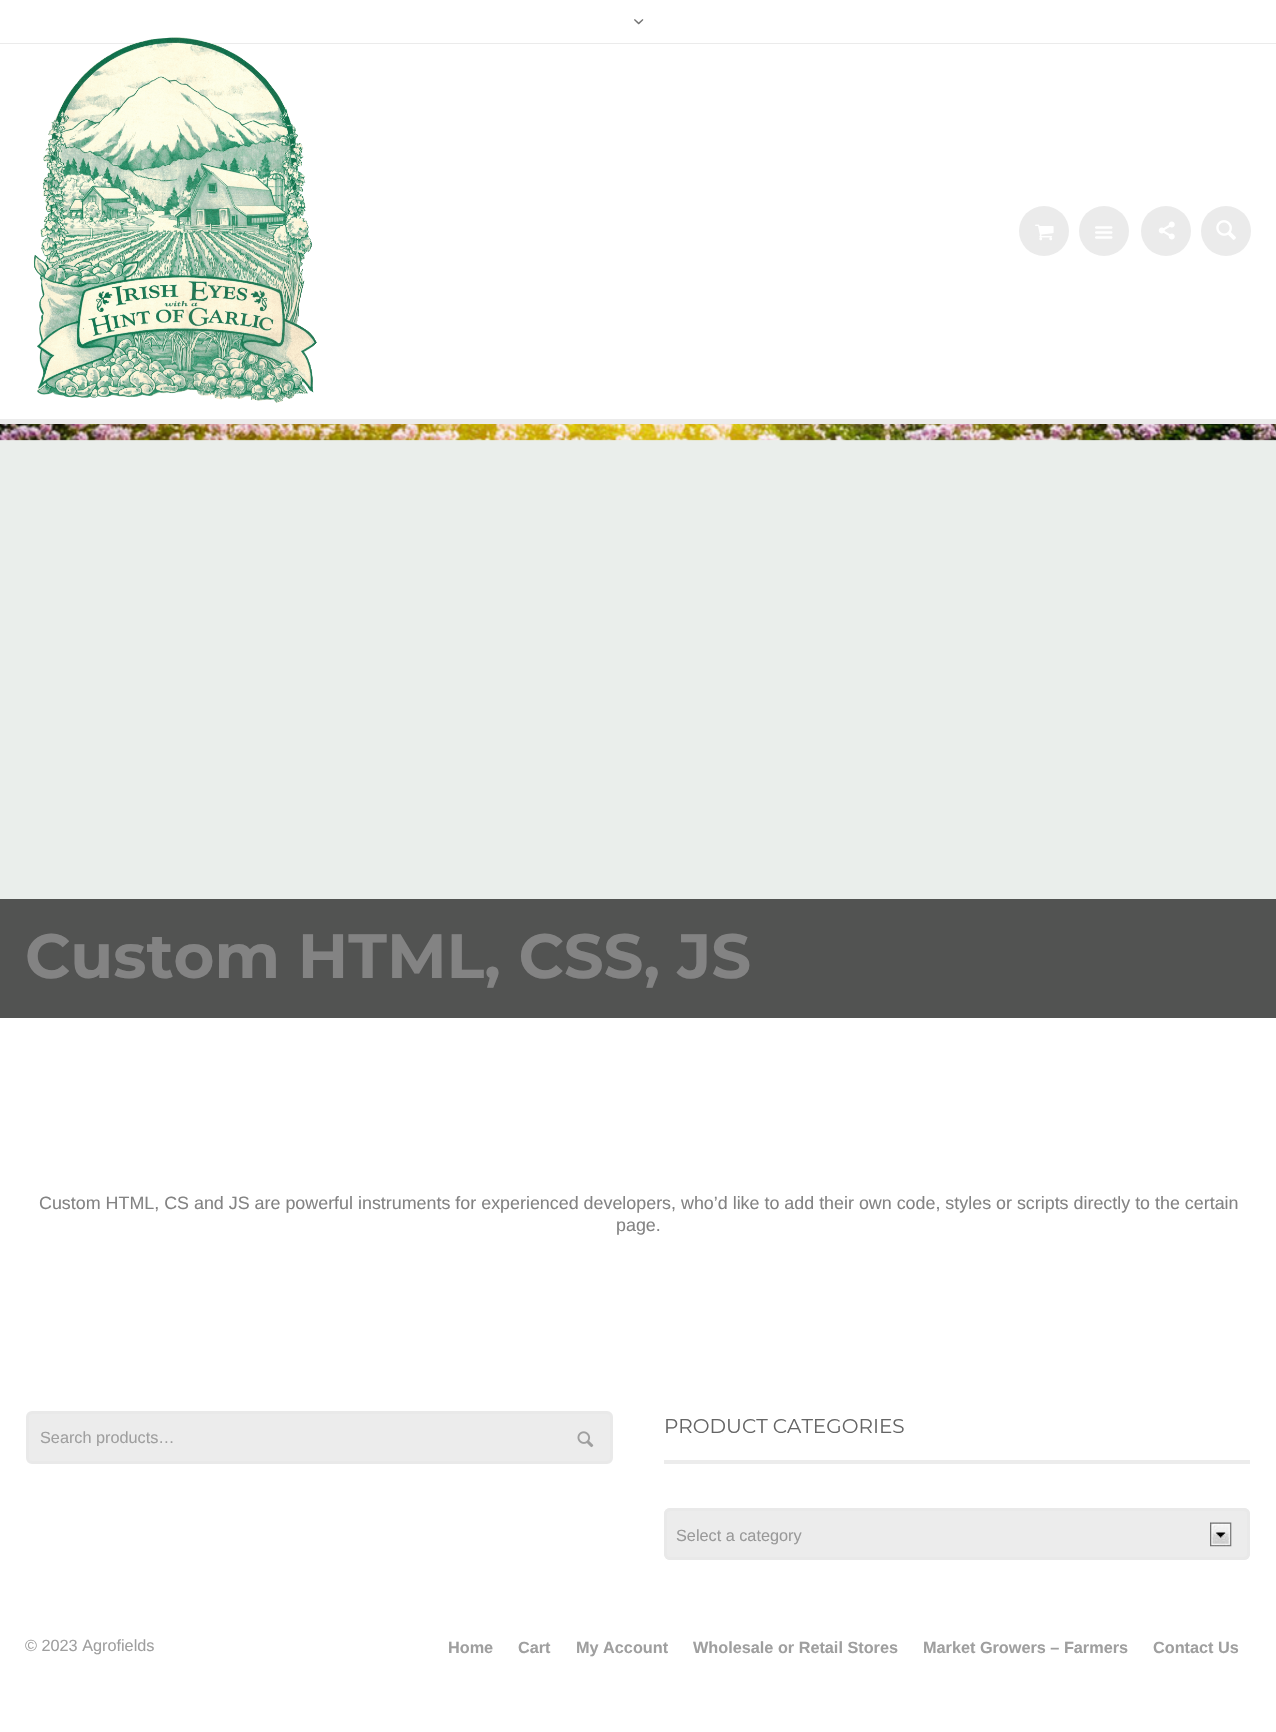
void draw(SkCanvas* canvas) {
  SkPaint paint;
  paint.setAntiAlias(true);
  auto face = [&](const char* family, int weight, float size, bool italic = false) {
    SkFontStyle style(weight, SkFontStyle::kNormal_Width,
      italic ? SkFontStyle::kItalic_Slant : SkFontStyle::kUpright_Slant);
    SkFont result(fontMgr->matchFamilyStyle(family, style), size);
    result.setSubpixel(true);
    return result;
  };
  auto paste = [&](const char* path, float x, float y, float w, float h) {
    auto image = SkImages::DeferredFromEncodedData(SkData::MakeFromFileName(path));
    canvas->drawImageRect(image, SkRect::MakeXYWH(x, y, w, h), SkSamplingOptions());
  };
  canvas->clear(0xffffffff);
  paint.setColor(0xffebebeb);
  canvas->drawRect(SkRect::MakeXYWH(0, 43, 1276, 1), paint);
  paste("img/1.png", 634, 19, 10, 6);
  paste("img/2.png", 33, 37, 284, 366);
  canvas->drawCircle(1044, 231, 25, paint);
  paste("img/3.png", 1035, 224, 19, 17);
  canvas->drawCircle(1104, 231, 25, paint);
  paste("img/4.png", 1095, 226, 18, 13);
  canvas->drawCircle(1166, 231, 25, paint);
  paste("img/5.png", 1158, 221, 17, 19);
  canvas->drawCircle(1226, 231, 25, paint);
  paste("img/6.png", 1216, 220, 20, 20);
  canvas->drawRect(SkRect::MakeXYWH(0, 419, 1276, 5), paint);
  paint.setColor(0xffeaeeeb);
  canvas->drawRect(SkRect::MakeXYWH(0, 439, 1276, 460), paint);
  paste("img/7.png", 0, 424, 1276, 17);
  paint.setColor(0xff525352);
  canvas->drawRect(SkRect::MakeXYWH(0, 899, 1276, 119), paint);
  paint.setColor(0xffececec);
  canvas->drawRoundRect(SkRect::MakeXYWH(27.5f, 1412.5f, 584, 50), 4.5f, 4.5f, paint);
  paint.setStroke(true);
  paint.setStrokeWidth(3);
  paint.setColor(0xffe9e9e9);
  canvas->drawRoundRect(SkRect::MakeXYWH(27.5f, 1412.5f, 584, 50), 4.5f, 4.5f, paint);
  paste("img/8.png", 577, 1431, 17, 17);
  paint.setStroke(false);
  paint.setColor(0xffececec);
  canvas->drawRect(SkRect::MakeXYWH(664, 1460, 586, 4), paint);
  canvas->drawRoundRect(SkRect::MakeXYWH(664, 1508, 586, 52), 6, 6, paint);
  paste("img/9.png", 1210, 1522, 22, 25);
  paint.setStroke(true);
  paint.setColor(0xffe9e9e9);
  canvas->drawRoundRect(SkRect::MakeXYWH(665.5f, 1509.5f, 583, 49), 4.5f, 4.5f, paint);
  auto f0 = face("Montserrat", 700, 62.5f);
  paint.setStroke(false);
  paint.setColor(0xff838383);
  canvas->drawString("Custom HTML, CSS, JS", 25, 978, f0, paint);
  auto f1 = face("Liberation Sans", 400, 17.88f);
  canvas->drawString("Custom HTML, CS and JS are powerful instruments for experienced developers, who’d like to add their own code, styles or scripts directly to the certain", 39, 1209, f1, paint);
  canvas->drawString("page.", 616, 1231, f1, paint);
  canvas->save();
  canvas->clipRect(SkRect::MakeXYWH(40, 1428, 515, 18));
  auto f2 = face("Liberation Sans", 400, 16.25f);
  paint.setColor(0xff9f9f9f);
  canvas->drawString("Search products…", 40, 1443, f2, paint);
  canvas->restore();
  auto f3 = face("Montserrat", 400, 20);
  paint.setColor(0xff656565);
  canvas->drawString("PRODUCT CATEGORIES", 664, 1433, f3, paint);
  paint.setColor(0xff999999);
  canvas->drawString("Select a category", 676, 1541, f2, paint);
  paint.setColor(0xff9f9f9f);
  canvas->drawString("© 2023 Agrofields", 25, 1651, f2, paint);
  auto f4 = face("Liberation Sans", 700, 16.25f);
  {
    const struct { const char* s; float x, y; } items[] = {
      {"Home", 448, 1653},
      {"Cart", 518, 1653},
      {"My Account", 576, 1653},
      {"Wholesale or Retail Stores", 693, 1653},
      {"Market Growers – Farmers", 923, 1653},
      {"Contact Us", 1153, 1653},
    };
    for (auto [s, x, y] : items) {
      canvas->drawString(s, x, y, f4, paint);
    }
  }
}
